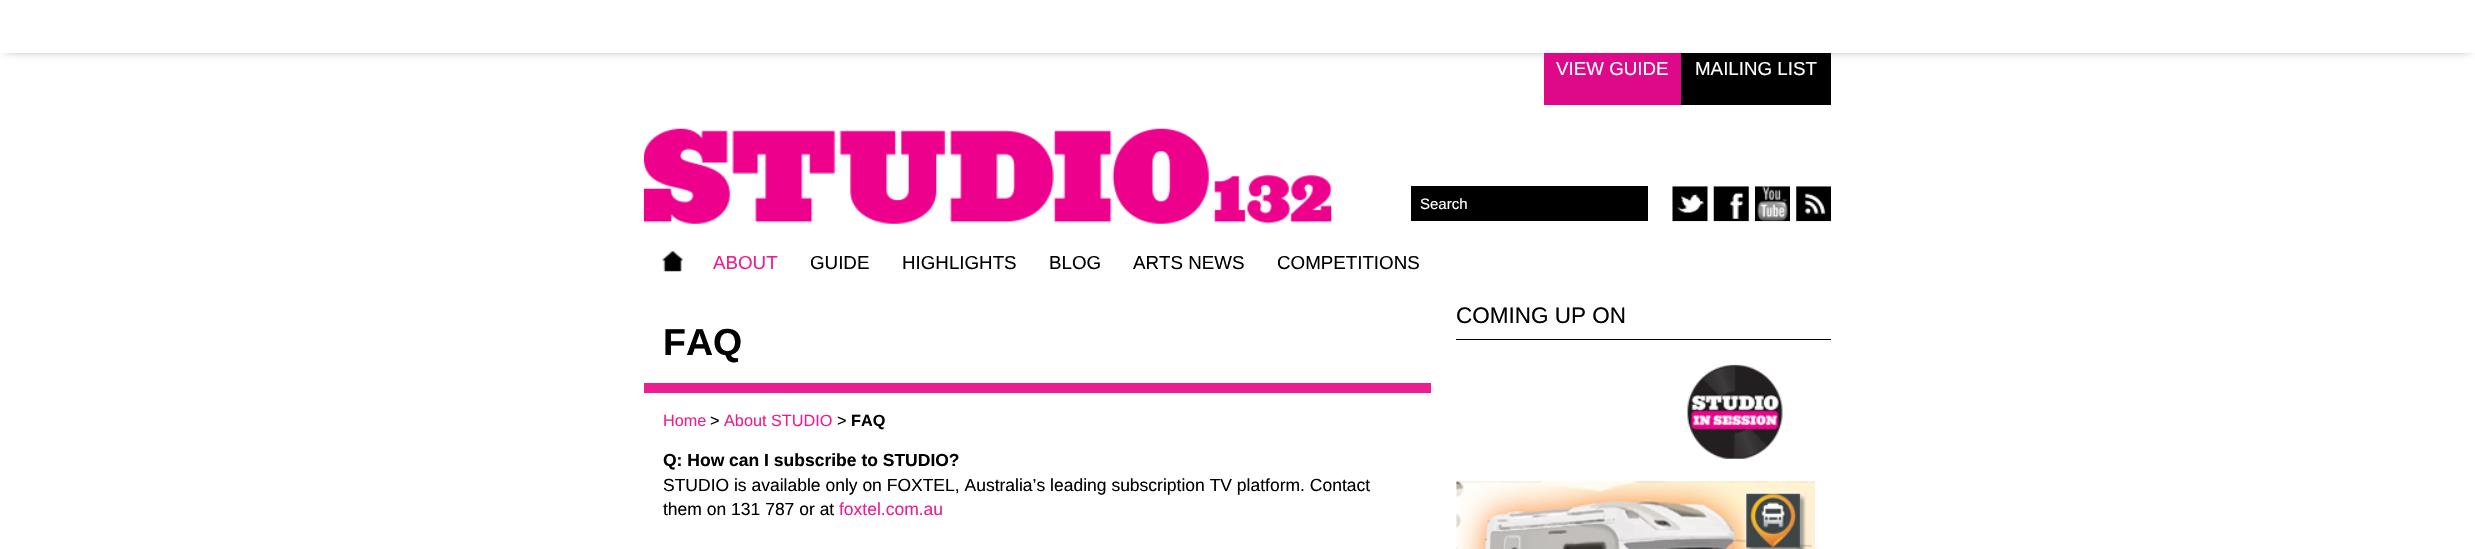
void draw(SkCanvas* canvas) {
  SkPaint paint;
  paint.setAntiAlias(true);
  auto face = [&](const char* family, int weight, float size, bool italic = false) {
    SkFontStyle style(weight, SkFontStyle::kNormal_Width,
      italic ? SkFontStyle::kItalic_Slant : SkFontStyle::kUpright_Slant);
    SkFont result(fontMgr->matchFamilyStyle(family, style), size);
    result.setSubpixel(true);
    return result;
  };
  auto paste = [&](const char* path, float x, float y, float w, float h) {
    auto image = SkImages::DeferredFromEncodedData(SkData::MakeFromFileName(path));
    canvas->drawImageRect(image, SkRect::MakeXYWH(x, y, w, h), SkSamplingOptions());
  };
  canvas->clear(0xffffffff);
  paint.setColor(0xff000000);
  paint.setMaskFilter(SkMaskFilter::MakeBlur(kNormal_SkBlurStyle, 6));
  canvas->drawRect(SkRect::MakeXYWH(6, 6, 2463, 40), paint);
  paint.setMaskFilter(nullptr);
  paint.setColor(0xffffffff);
  canvas->drawRect(SkRect::MakeXYWH(0, 0, 2475, 53), paint);
  paste("img/1.png", 643, 128, 689, 96);
  {
    const struct { float x, y, w, h; SkColor color; } items[] = {
      {1544, 53, 137, 52, 0xffde0988},
      {1681, 53, 150, 52, 0xff000000},
      {1411, 186, 237, 35, 0xff000000},
    };
    for (auto [x, y, w, h, color] : items) {
      paint.setColor(color);
      canvas->drawRect(SkRect::MakeXYWH(x, y, w, h), paint);
    }
  }
  paste("img/2.png", 1672, 186, 36, 36);
  paste("img/3.png", 1713, 186, 36, 36);
  paste("img/4.png", 1755, 186, 35, 36);
  paste("img/5.png", 1796, 186, 35, 36);
  paste("img/6.png", 662, 251, 21, 21);
  canvas->drawRect(SkRect::MakeXYWH(1456, 339, 375, 1), paint);
  paste("img/7.png", 1687, 364, 96, 95);
  paste("img/8.png", 1456, 481, 359, 68);
  paint.setColor(0xffec1d91);
  canvas->drawRect(SkRect::MakeXYWH(644, 383, 787, 10), paint);
  auto f0 = face("Liberation Sans", 400, 18.75f);
  paint.setColor(0xffffffff);
  canvas->drawString("VIEW GUIDE", 1556, 75, f0, paint);
  canvas->drawString("MAILING LIST", 1695, 75, f0, paint);
  auto f1 = face("Liberation Sans", 400, 15);
  canvas->drawString("Search", 1420, 209, f1, paint);
  paint.setColor(0xffec1d91);
  canvas->drawString("ABOUT", 713, 269, f0, paint);
  paint.setColor(0xff000000);
  {
    const struct { const char* s; float x, y; } items[] = {
      {"GUIDE", 810, 269},
      {"HIGHLIGHTS", 902, 269},
      {"BLOG", 1049, 269},
      {"ARTS NEWS", 1133, 269},
      {"COMPETITIONS", 1277, 269},
    };
    for (auto [s, x, y] : items) {
      canvas->drawString(s, x, y, f0, paint);
    }
  }
  auto f2 = face("Liberation Sans", 400, 22.5f);
  canvas->drawString("COMING UP ON", 1456, 323, f2, paint);
  auto f3 = face("Liberation Sans", 700, 37.5f);
  canvas->drawString("FAQ", 663, 355, f3, paint);
  auto f4 = face("Liberation Sans", 400, 16.25f);
  paint.setColor(0xffec1d91);
  canvas->drawString("Home", 663, 426, f4, paint);
  paint.setColor(0xff000000);
  canvas->drawString(">", 710, 426, f4, paint);
  paint.setColor(0xffec1d91);
  canvas->drawString("About STUDIO", 724, 426, f4, paint);
  paint.setColor(0xff000000);
  canvas->drawString(">", 837, 426, f4, paint);
  auto f5 = face("Liberation Sans", 700, 16.25f);
  canvas->drawString("FAQ", 851, 426, f5, paint);
  auto f6 = face("Liberation Sans", 700, 17.5f);
  canvas->drawString("Q: How can I subscribe to STUDIO?", 663, 466, f6, paint);
  auto f7 = face("Liberation Sans", 400, 17.5f);
  canvas->drawString("STUDIO is available only on FOXTEL, Australia’s leading subscription TV platform. Contact", 663, 491, f7, paint);
  canvas->drawString("them on 131 787 or at", 663, 515, f7, paint);
  paint.setColor(0xffec1d91);
  canvas->drawString("foxtel.com.au", 839, 515, f7, paint);
}
